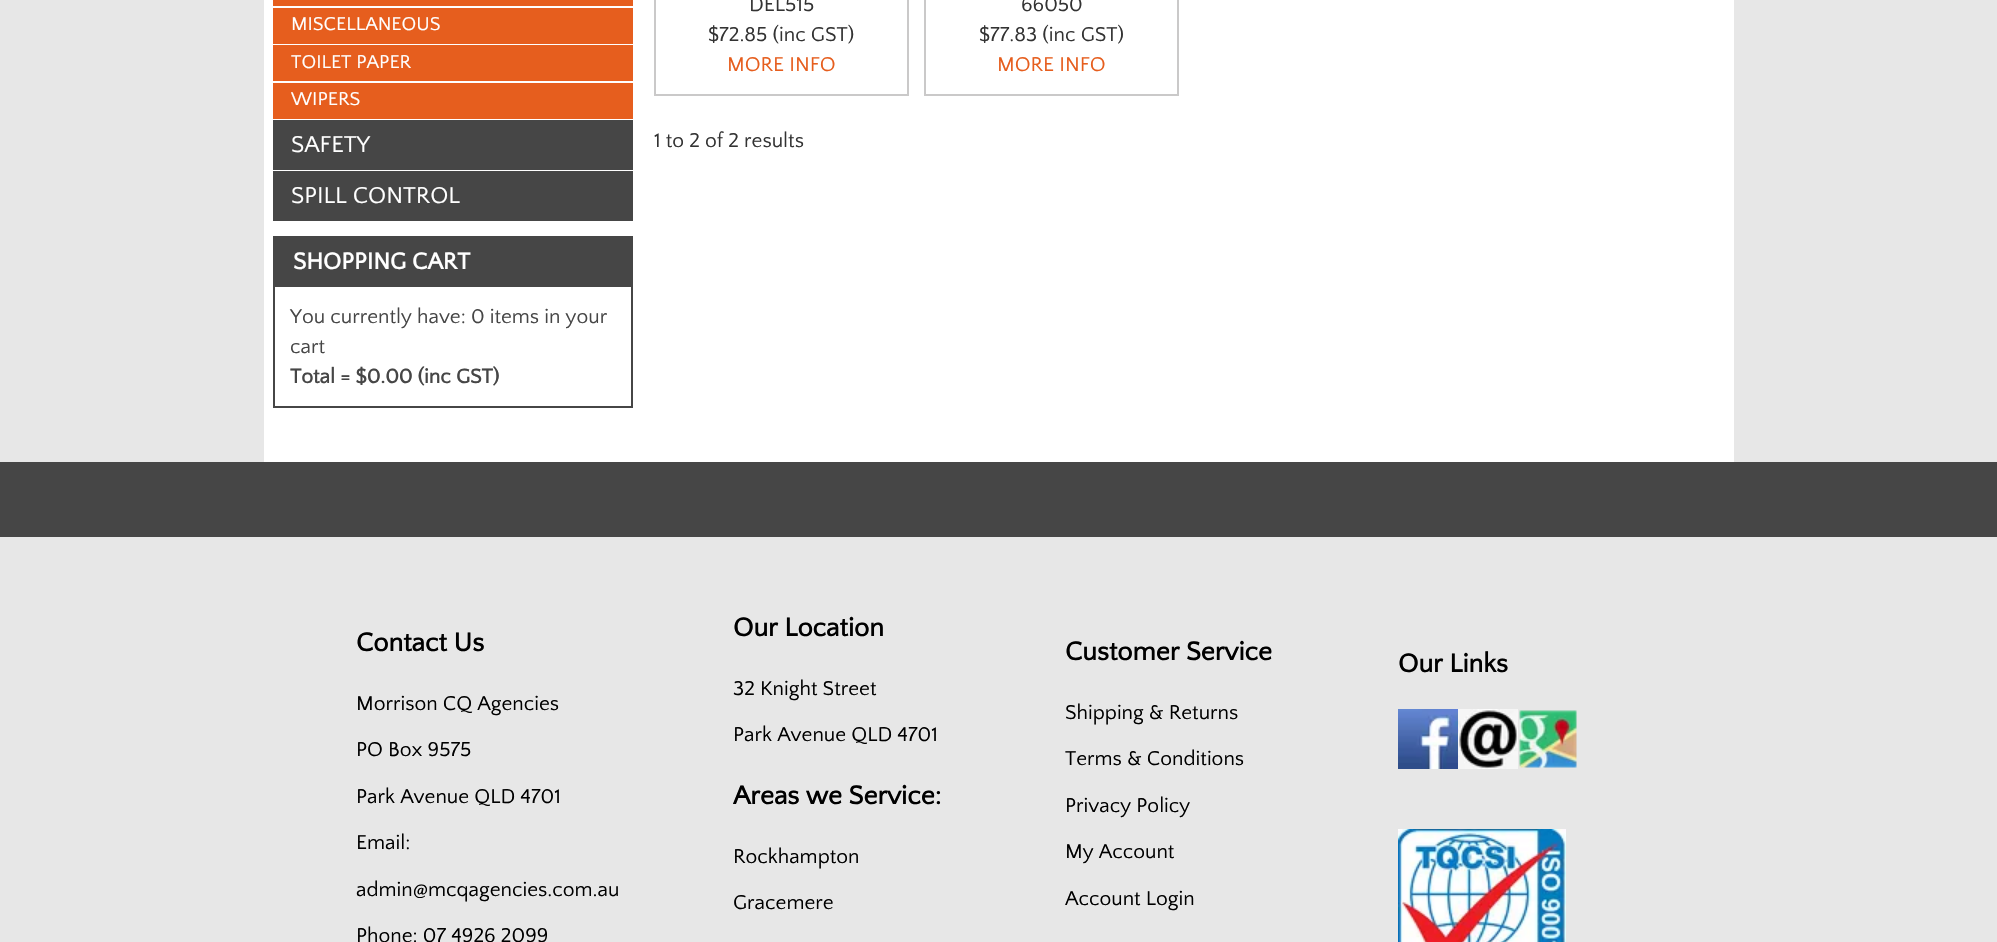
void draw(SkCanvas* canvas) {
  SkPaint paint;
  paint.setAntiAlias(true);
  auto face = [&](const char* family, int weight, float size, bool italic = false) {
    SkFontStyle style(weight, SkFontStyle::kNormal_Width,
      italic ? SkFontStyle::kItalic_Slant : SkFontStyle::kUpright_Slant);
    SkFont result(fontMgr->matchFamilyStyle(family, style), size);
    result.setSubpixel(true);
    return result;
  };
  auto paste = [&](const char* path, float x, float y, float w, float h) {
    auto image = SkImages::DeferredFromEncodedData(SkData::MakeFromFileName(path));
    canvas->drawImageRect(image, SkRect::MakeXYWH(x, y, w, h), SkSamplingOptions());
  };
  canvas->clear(0xffe7e7e7);
  {
    const struct { float x, y, w, h; SkColor color; } items[] = {
      {264, 0, 1470, 462, 0xffffffff},
      {273, 0, 360, 6, 0xffe65e1e},
      {273, 8, 360, 36, 0xffe65e1e},
      {273, 45, 360, 36, 0xffe65e1e},
      {273, 83, 360, 36, 0xffe65e1e},
      {273, 120, 360, 50, 0xff464646},
      {273, 171, 360, 50, 0xff464646},
    };
    for (auto [x, y, w, h, color] : items) {
      paint.setColor(color);
      canvas->drawRect(SkRect::MakeXYWH(x, y, w, h), paint);
    }
  }
  paint.setStroke(true);
  paint.setStrokeWidth(2);
  canvas->drawRect(SkRect::MakeXYWH(274, 237, 358, 170), paint);
  paint.setStroke(false);
  canvas->drawRect(SkRect::MakeXYWH(275, 238, 356, 49), paint);
  paint.setStroke(true);
  paint.setColor(0xffcac9c9);
  canvas->drawRect(SkRect::MakeXYWH(655, -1, 253, 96), paint);
  canvas->drawRect(SkRect::MakeXYWH(925, -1, 253, 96), paint);
  paint.setStroke(false);
  paint.setColor(0xff464646);
  canvas->drawRect(SkRect::MakeXYWH(0, 462, 1997, 75), paint);
  paste("img/1.png", 1398, 709, 60, 60);
  paste("img/2.png", 1458, 709, 60, 60);
  paste("img/3.png", 1519, 710, 58, 58);
  paste("img/4.png", 1398, 829, 168, 113);
  auto f0 = face("Quattrocento Sans", 400, 19.5f);
  paint.setColor(0xffffffff);
  {
    const struct { const char* s; float x, y; } items[] = {
      {"MISCELLANEOUS", 291, 30},
      {"TOILET PAPER", 291, 68},
      {"WIPERS", 291, 105},
    };
    for (auto [s, x, y] : items) {
      canvas->drawString(s, x, y, f0, paint);
    }
  }
  auto f1 = face("Quattrocento Sans", 400, 24);
  canvas->drawString("SAFETY", 291, 152, f1, paint);
  canvas->drawString("SPILL CONTROL", 291, 203, f1, paint);
  auto f2 = face("Quattrocento Sans", 700, 24);
  canvas->drawString("SHOPPING CART", 293, 269, f2, paint);
  auto f3 = face("Quattrocento Sans", 400, 21);
  paint.setColor(0xff464646);
  canvas->drawString("You currently have: 0 items in your", 290, 323, f3, paint);
  canvas->drawString("cart", 290, 353, f3, paint);
  auto f4 = face("Quattrocento Sans", 700, 21);
  canvas->drawString("Total = $0.00 (inc GST)", 290, 383, f4, paint);
  paint.setColor(0xff333333);
  canvas->drawString("DEL515", 749, 11, f3, paint);
  canvas->drawString("$72.85 (inc GST)", 708, 41, f3, paint);
  paint.setColor(0xffe65e1e);
  canvas->drawString("MORE INFO", 727, 71, f3, paint);
  paint.setColor(0xff333333);
  canvas->drawString("66050", 1021, 11, f3, paint);
  canvas->drawString("$77.83 (inc GST)", 979, 41, f3, paint);
  paint.setColor(0xffe65e1e);
  canvas->drawString("MORE INFO", 997, 71, f3, paint);
  paint.setColor(0xff333333);
  canvas->drawString("1 to 2 of 2 results", 654, 147, f3, paint);
  auto f5 = face("Quattrocento Sans", 700, 27);
  paint.setColor(0xff000000);
  canvas->drawString("Contact Us", 356, 651, f5, paint);
  {
    const struct { const char* s; float x, y; } items[] = {
      {"Morrison CQ Agencies", 356, 710},
      {"PO Box 9575", 356, 756},
      {"Park Avenue QLD 4701", 356, 803},
      {"Email:", 356, 849},
      {"admin@mcqagencies.com.au", 356, 896},
      {"Phone: 07 4926 2099", 356, 942},
    };
    for (auto [s, x, y] : items) {
      canvas->drawString(s, x, y, f3, paint);
    }
  }
  canvas->drawString("Our Location", 733, 636, f5, paint);
  canvas->drawString("32 Knight Street", 733, 695, f3, paint);
  canvas->drawString("Park Avenue QLD 4701", 733, 741, f3, paint);
  canvas->drawString("Areas we Service:", 733, 804, f5, paint);
  canvas->drawString("Rockhampton", 733, 863, f3, paint);
  canvas->drawString("Gracemere", 733, 909, f3, paint);
  canvas->drawString("Customer Service", 1065, 660, f5, paint);
  {
    const struct { const char* s; float x, y; } items[] = {
      {"Shipping & Returns", 1065, 719},
      {"Terms & Conditions", 1065, 765},
      {"Privacy Policy", 1065, 812},
      {"My Account", 1065, 858},
      {"Account Login", 1065, 905},
    };
    for (auto [s, x, y] : items) {
      canvas->drawString(s, x, y, f3, paint);
    }
  }
  canvas->drawString("Our Links", 1398, 672, f5, paint);
}
